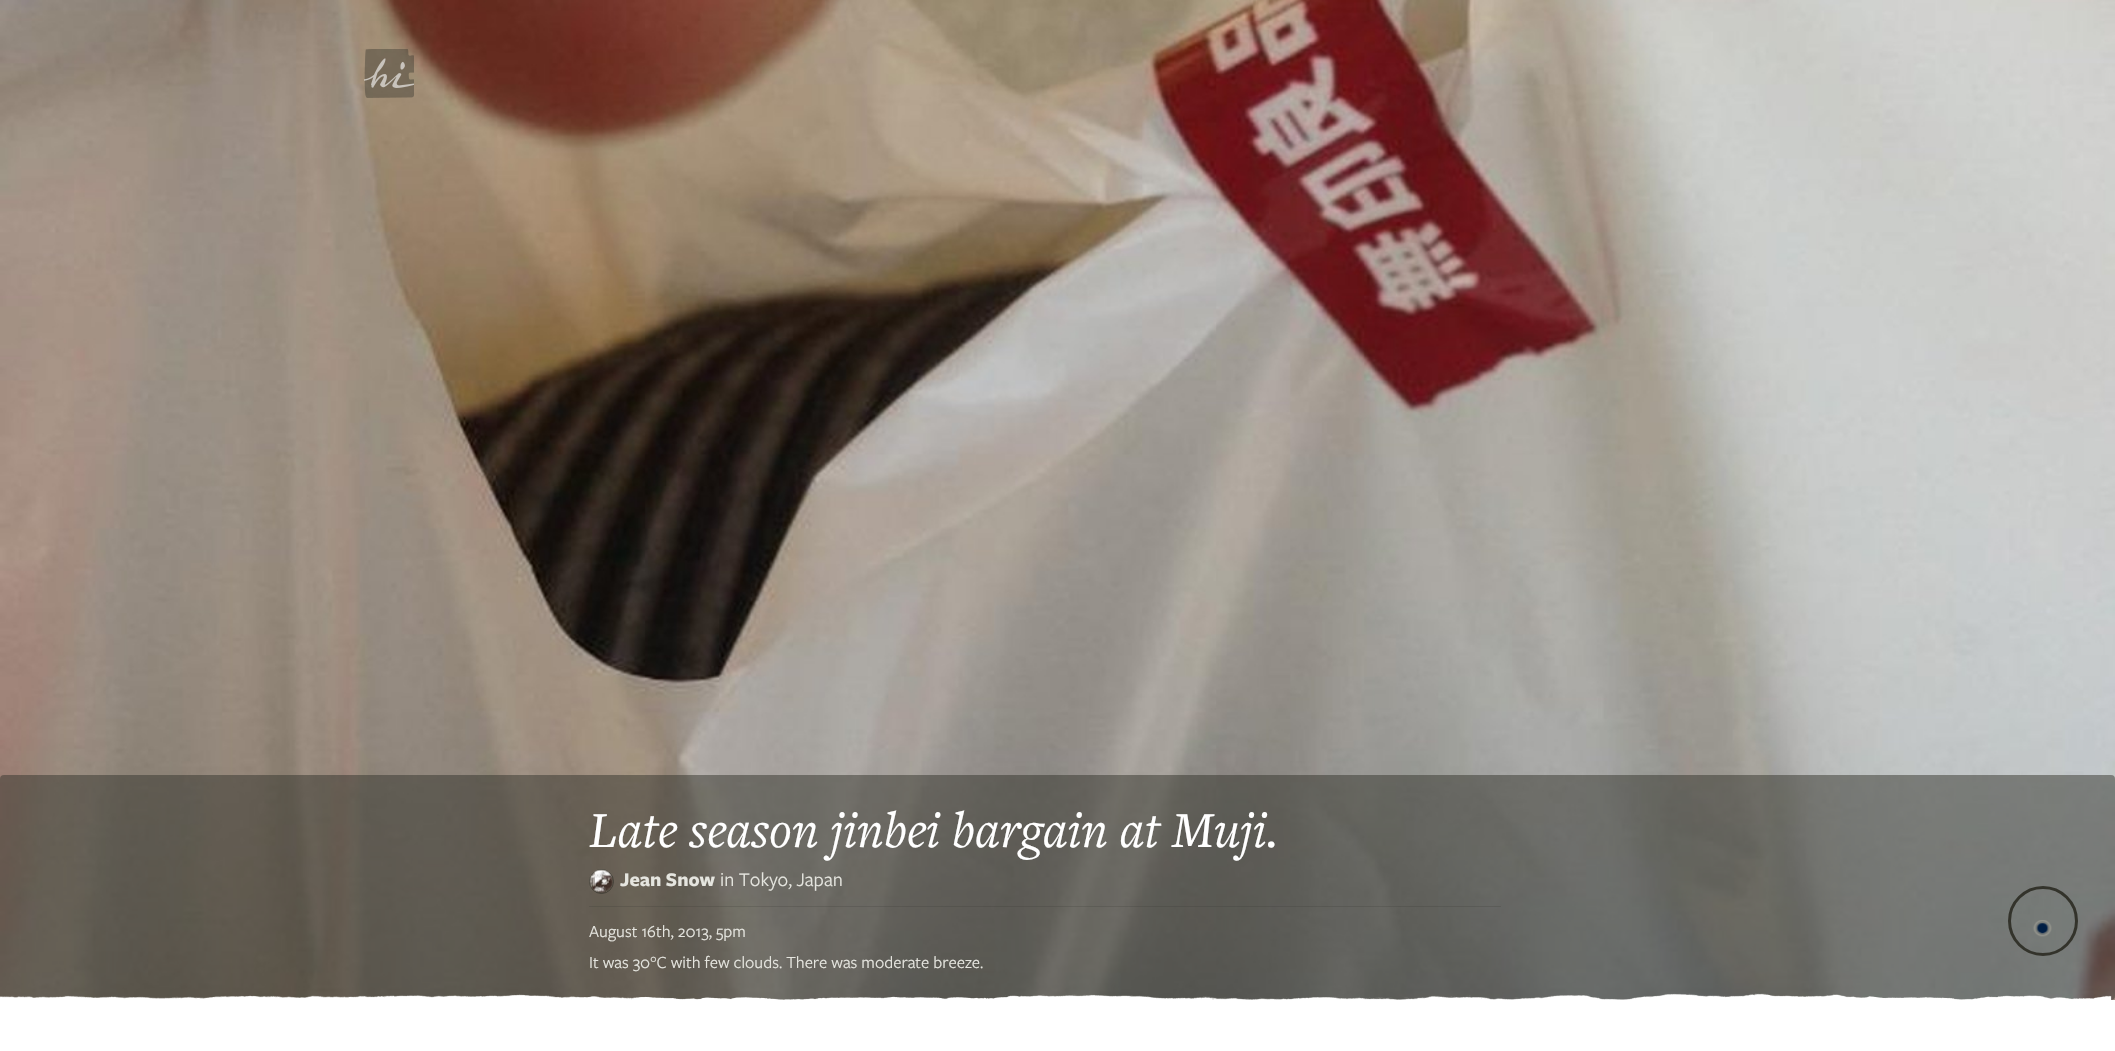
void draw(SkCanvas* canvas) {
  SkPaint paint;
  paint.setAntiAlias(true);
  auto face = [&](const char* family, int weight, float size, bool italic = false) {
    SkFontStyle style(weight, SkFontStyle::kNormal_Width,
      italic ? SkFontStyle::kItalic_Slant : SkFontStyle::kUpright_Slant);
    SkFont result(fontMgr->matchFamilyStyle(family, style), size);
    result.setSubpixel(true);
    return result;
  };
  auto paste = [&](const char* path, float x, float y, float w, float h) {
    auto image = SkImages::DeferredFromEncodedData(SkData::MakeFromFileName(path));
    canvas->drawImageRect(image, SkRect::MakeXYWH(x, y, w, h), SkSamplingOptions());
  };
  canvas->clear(0xffffffff);
  paste("img/2.png", 0, 0, 2115, 1000);
  paste("img/1.png", 364, 49, 50, 49);
  paint.setColor(0x8033332b);
  canvas->drawRoundRect(SkRect::MakeXYWH(0, 775, 2115, 225), 4, 4, paint);
  paint.setColor(0x3333332b);
  canvas->drawRect(SkRect::MakeXYWH(589, 906, 912, 1), paint);
  paint.setStroke(true);
  paint.setStrokeWidth(1);
  paint.setColor(0xb333332b);
  canvas->drawCircle(601.5f, 881.5f, 12, paint);
  paste("img/3.png", 589, 869, 24, 24);
  paste("img/4.png", 0, 993, 2112, 7);
  paste("img/5.png", 2033, 920, 19, 17);
  paint.setStrokeWidth(3);
  paint.setColor(0xff33332b);
  canvas->drawCircle(2043, 921, 33.5f, paint);
  auto f0 = face("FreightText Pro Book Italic", 400, 52.5f, true);
  paint.setStroke(false);
  paint.setColor(0xffffffff);
  canvas->drawString("Late season jinbei bargain at Muji.", 589, 847, f0, paint);
  auto f1 = face("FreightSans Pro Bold", 700, 20);
  paint.setColor(0xffe5e5df);
  canvas->drawString("Jean Snow", 620, 886, f1, paint);
  auto f2 = face("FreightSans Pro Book", 400, 20);
  canvas->drawString("in Tokyo, Japan", 720, 886, f2, paint);
  auto f3 = face("FreightSans Pro Book", 400, 17.5f);
  canvas->drawString("August 16th, 2013, 5pm", 589, 937, f3, paint);
  canvas->drawString("It was 30°C with few clouds. There was moderate breeze.", 589, 968, f3, paint);
}
